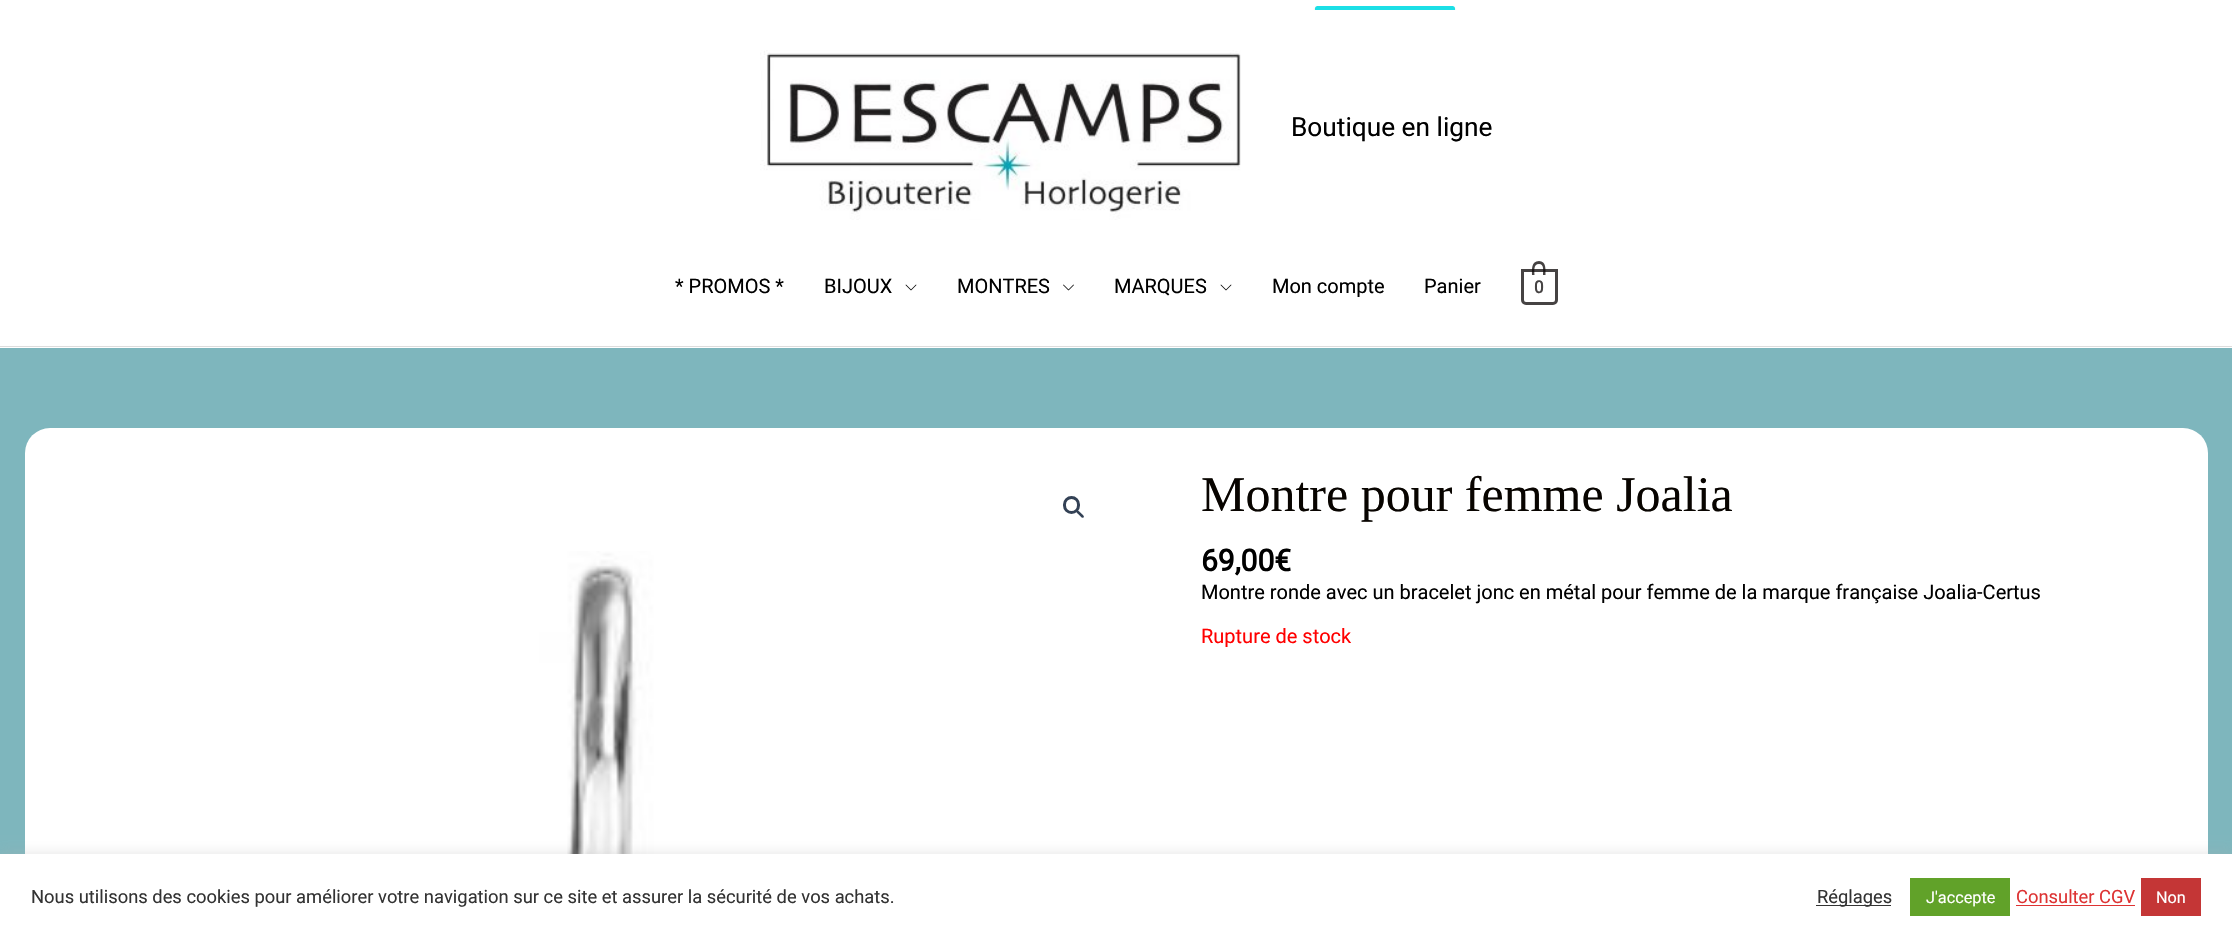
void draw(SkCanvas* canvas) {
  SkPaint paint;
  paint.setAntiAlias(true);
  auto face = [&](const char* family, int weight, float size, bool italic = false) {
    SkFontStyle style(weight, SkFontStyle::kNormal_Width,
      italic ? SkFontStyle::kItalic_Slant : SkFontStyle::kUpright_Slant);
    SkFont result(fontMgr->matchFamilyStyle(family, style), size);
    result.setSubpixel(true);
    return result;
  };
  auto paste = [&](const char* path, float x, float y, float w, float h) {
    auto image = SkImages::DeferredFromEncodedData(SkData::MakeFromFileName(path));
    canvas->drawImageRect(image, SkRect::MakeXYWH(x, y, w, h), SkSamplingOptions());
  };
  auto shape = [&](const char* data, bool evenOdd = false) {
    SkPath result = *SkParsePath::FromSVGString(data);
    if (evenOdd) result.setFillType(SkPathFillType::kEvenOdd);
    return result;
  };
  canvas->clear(0xff7eb6bd);
  paint.setColor(0xffffffff);
  canvas->drawRect(SkRect::MakeXYWH(0, 0, 2232, 348), paint);
  canvas->save();
  canvas->clipRect(SkRect::MakeXYWH(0, 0, 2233, 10));
  paint.setColor(0x33000000);
  paint.setMaskFilter(SkMaskFilter::MakeBlur(kNormal_SkBlurStyle, 1));
  canvas->drawRoundRect(SkRect::MakeXYWH(1315, 8, 140, 32), 2.5f, 2.5f, paint);
  paint.setMaskFilter(nullptr);
  canvas->restore();
  paint.setColor(0xff1cdfe6);
  canvas->drawPath(shape("M1317.5 6H1452.5C1454 6 1455 7 1455 8.5V10H1315V8.5C1315 7 1316 6 1317.5 6Z"), paint);
  paint.setColor(0xffdddddd);
  canvas->drawRect(SkRect::MakeXYWH(0, 346, 2232, 1), paint);
  paste("img/1.png", 760, 50, 481, 170);
  paste("img/2.png", 905, 284, 12, 7);
  paste("img/3.png", 1063, 284, 11, 7);
  paste("img/2.png", 1220, 284, 12, 7);
  paint.setStroke(true);
  paint.setStrokeWidth(3);
  paint.setColor(0xff464343);
  canvas->drawPath(shape("M1522.5 270.5H1556.5V300C1556.5 302 1555 303.5 1553 303.5H1526C1524 303.5 1522.5 302 1522.5 300Z"), paint);
  paint.setStroke(false);
  paint.setColor(0xc20b0707);
  canvas->drawPath(shape("M1539 261C1546.5 261 1545.5 269.5 1545.5 275H1532C1532 269.5 1531 261 1539 261ZM1539 264C1544.5 264 1543 271.5 1543 275H1534.5C1534.5 271.5 1533 264 1539 264Z", true), paint);
  paint.setColor(0xffffffff);
  canvas->drawRoundRect(SkRect::MakeXYWH(25, 428, 2183, 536), 25, 25, paint);
  paint.setStroke(true);
  paint.setColor(0xff334155);
  canvas->drawRoundRect(SkRect::MakeXYWH(1064.5f, 497.5f, 14, 15), 7, 7, paint);
  paint.setStroke(false);
  canvas->drawPath(shape("M1076.5 510.5C1078 509 1080 512.5 1081 513C1081.5 514 1085 516 1083.5 517.5C1082 519 1080 515.5 1079 515C1078.5 514 1075 512 1076.5 510.5Z"), paint);
  paste("img/4.png", 517, 551, 163, 303);
  paint.setColor(0x4dacabab);
  paint.setMaskFilter(SkMaskFilter::MakeBlur(kNormal_SkBlurStyle, 6));
  canvas->drawRect(SkRect::MakeXYWH(0, 853, 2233, 86), paint);
  paint.setMaskFilter(nullptr);
  {
    const struct { float x, y, w, h; SkColor color; } items[] = {
      {0, 854, 2232, 85, 0xffffffff},
      {1816, 905, 75, 1, 0xff333333},
      {1910, 878, 100, 38, 0xff61a229},
      {2016, 905, 119, 1, 0xffdd3333},
      {2141, 878, 60, 38, 0xffc43636},
    };
    for (auto [x, y, w, h, color] : items) {
      paint.setColor(color);
      canvas->drawRect(SkRect::MakeXYWH(x, y, w, h), paint);
    }
  }
  auto f0 = face("Roboto", 400, 26.25f);
  paint.setColor(0xff000000);
  canvas->drawString("Boutique en ligne", 1291, 136, f0, paint);
  auto f1 = face("Roboto", 400, 20);
  {
    const struct { const char* s; float x, y; } items[] = {
      {"* PROMOS *", 675, 293},
      {"BIJOUX", 824, 293},
      {"MONTRES", 957, 293},
      {"MARQUES", 1114, 293},
      {"Mon compte", 1272, 293},
      {"Panier", 1424, 293},
    };
    for (auto [s, x, y] : items) {
      canvas->drawString(s, x, y, f1, paint);
    }
  }
  auto f2 = face("Roboto", 700, 17);
  paint.setColor(0xff464343);
  canvas->drawString("0", 1534, 293, f2, paint);
  auto f3 = face("Liberation Serif", 400, 50);
  paint.setColor(0xff080400);
  canvas->drawString("Montre pour femme Joalia", 1201, 511, f3, paint);
  auto f4 = face("Roboto", 700, 30);
  paint.setColor(0xff000000);
  canvas->drawString("69,00€", 1201, 571, f4, paint);
  canvas->drawString("Montre ronde avec un bracelet jonc en métal pour femme de la marque française Joalia-Certus", 1201, 599, f1, paint);
  paint.setColor(0xffff0000);
  canvas->drawString("Rupture de stock", 1201, 643, f1, paint);
  auto f5 = face("Roboto", 400, 18.35f);
  paint.setColor(0xff333333);
  canvas->drawString("Nous utilisons des cookies pour améliorer votre navigation sur ce site et assurer la sécurité de vos achats.", 31, 903, f5, paint);
  canvas->drawString("Réglages", 1817, 903, f5, paint);
  auto f6 = face("Roboto", 400, 16.25f);
  paint.setColor(0xffffffff);
  canvas->drawString("J'accepte", 1926, 903, f6, paint);
  paint.setColor(0xffdd3333);
  canvas->drawString("Consulter CGV", 2016, 903, f5, paint);
  paint.setColor(0xffffffff);
  canvas->drawString("Non", 2156, 903, f6, paint);
}
